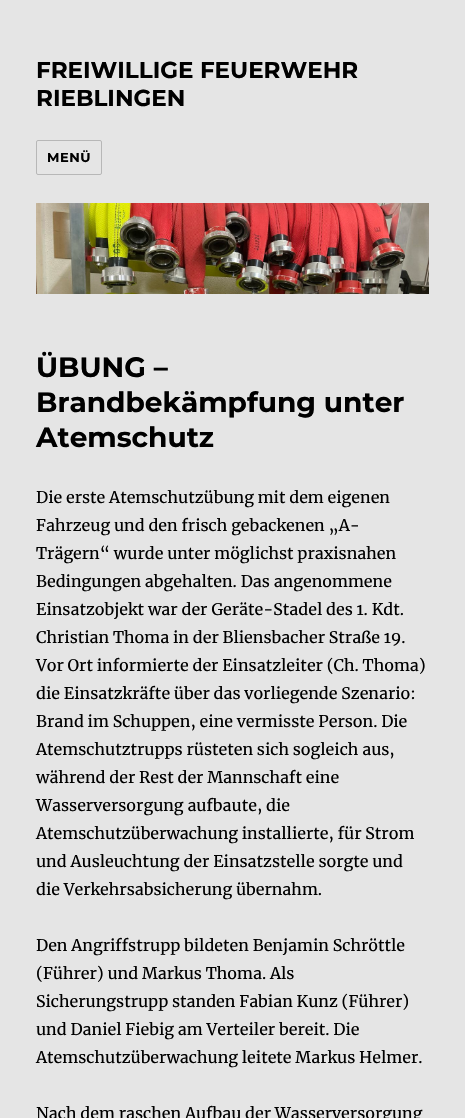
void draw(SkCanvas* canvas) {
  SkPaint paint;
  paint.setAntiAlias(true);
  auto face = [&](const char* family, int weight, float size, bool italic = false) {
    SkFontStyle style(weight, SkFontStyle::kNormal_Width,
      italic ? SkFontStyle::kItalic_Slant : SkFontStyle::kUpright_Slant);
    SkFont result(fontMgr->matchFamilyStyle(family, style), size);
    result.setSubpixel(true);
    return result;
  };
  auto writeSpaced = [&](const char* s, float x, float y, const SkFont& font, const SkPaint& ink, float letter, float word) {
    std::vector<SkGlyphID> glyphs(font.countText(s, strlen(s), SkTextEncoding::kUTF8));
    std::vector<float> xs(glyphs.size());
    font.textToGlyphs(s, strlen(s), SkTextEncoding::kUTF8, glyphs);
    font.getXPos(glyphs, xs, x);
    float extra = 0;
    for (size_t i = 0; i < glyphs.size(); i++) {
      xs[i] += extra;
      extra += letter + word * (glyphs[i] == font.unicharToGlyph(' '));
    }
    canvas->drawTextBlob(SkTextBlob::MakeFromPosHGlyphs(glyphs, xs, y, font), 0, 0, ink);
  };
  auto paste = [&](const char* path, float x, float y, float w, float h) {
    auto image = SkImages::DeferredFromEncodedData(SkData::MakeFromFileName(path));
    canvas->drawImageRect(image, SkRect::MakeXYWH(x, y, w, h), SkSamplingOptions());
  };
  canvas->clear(0xffe5e5e5);
  paint.setStroke(true);
  paint.setStrokeWidth(1);
  paint.setColor(0xffb7b7b7);
  canvas->drawRoundRect(SkRect::MakeXYWH(36.5f, 140.5f, 65, 34), 1.5f, 1.5f, paint);
  paste("img/1.png", 36, 203, 393, 91);
  auto f0 = face("Montserrat", 100, 23);
  paint.setStroke(false);
  paint.setColor(0xff000000);
  canvas->drawString("FREIWILLIGE FEUERWEHR", 36, 78, f0, paint);
  canvas->drawString("RIEBLINGEN", 36, 106, f0, paint);
  auto f1 = face("Montserrat", 100, 13);
  writeSpaced("MENÜ", 47, 162, f1, paint, 0.5f, 0);
  auto f2 = face("Montserrat", 100, 28);
  {
    const struct { const char* s; float x, y; } items[] = {
      {"ÜBUNG –", 36, 377},
      {"Brandbekämpfung unter", 36, 412},
      {"Atemschutz", 36, 447},
    };
    for (auto [s, x, y] : items) {
      canvas->drawString(s, x, y, f2, paint);
    }
  }
  auto f3 = face("Merriweather", 400, 16);
  {
    const struct { const char* s; float x, y; } items[] = {
      {"Die erste Atemschutzübung mit dem eigenen", 36, 503},
      {"Fahrzeug und den frisch gebackenen „A-", 36, 531},
      {"Trägern“ wurde unter möglichst praxisnahen", 36, 559},
      {"Bedingungen abgehalten. Das angenommene", 36, 587},
      {"Einsatzobjekt war der Geräte-Stadel des 1. Kdt.", 36, 615},
      {"Christian Thoma in der Bliensbacher Straße 19.", 36, 643},
      {"Vor Ort informierte der Einsatzleiter (Ch. Thoma)", 36, 671},
      {"die Einsatzkräfte über das vorliegende Szenario:", 36, 699},
      {"Brand im Schuppen, eine vermisste Person. Die", 36, 727},
      {"Atemschutztrupps rüsteten sich sogleich aus,", 36, 755},
      {"während der Rest der Mannschaft eine", 36, 783},
      {"Wasserversorgung aufbaute, die", 36, 811},
      {"Atemschutzüberwachung installierte, für Strom", 36, 839},
      {"und Ausleuchtung der Einsatzstelle sorgte und", 36, 867},
      {"die Verkehrsabsicherung übernahm.", 36, 895},
      {"Den Angriffstrupp bildeten Benjamin Schröttle", 36, 951},
      {"(Führer) und Markus Thoma. Als", 36, 979},
      {"Sicherungstrupp standen Fabian Kunz (Führer)", 36, 1007},
      {"und Daniel Fiebig am Verteiler bereit. Die", 36, 1035},
      {"Atemschutzüberwachung leitete Markus Helmer.", 36, 1063},
      {"Nach dem raschen Aufbau der Wasserversorgung", 36, 1119},
    };
    for (auto [s, x, y] : items) {
      canvas->drawString(s, x, y, f3, paint);
    }
  }
}
